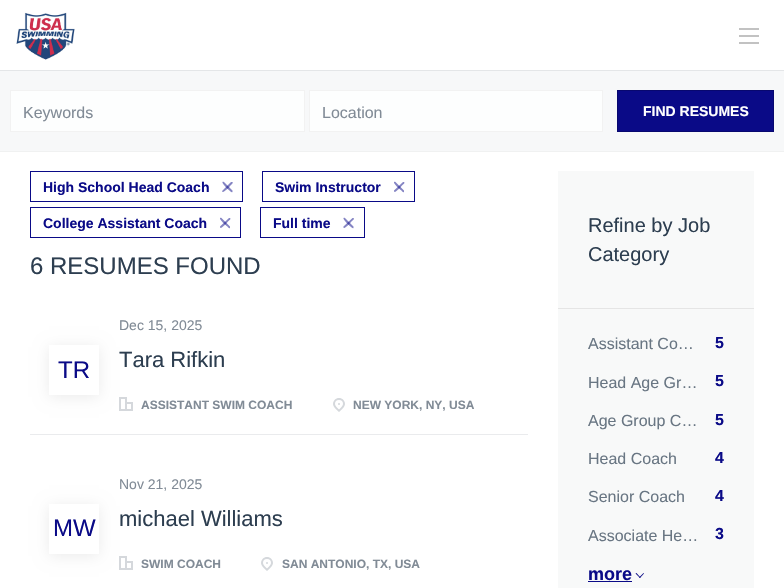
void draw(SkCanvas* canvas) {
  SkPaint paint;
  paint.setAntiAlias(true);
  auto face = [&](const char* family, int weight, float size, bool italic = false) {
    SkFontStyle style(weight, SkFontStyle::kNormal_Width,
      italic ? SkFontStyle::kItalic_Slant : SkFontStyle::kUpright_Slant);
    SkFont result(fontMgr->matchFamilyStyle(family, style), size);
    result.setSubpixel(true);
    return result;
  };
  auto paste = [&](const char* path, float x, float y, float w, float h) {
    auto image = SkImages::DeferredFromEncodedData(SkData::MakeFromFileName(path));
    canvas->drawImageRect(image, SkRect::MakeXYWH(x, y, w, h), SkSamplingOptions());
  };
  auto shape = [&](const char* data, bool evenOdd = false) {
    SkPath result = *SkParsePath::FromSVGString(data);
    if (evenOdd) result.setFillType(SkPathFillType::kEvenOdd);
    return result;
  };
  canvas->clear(0xffffffff);
  paint.setColor(0xffe4e6e8);
  canvas->drawRect(SkRect::MakeXYWH(0, 70, 784, 1), paint);
  paste("img/1.png", 16, 12, 59, 48);
  {
    const struct { float x, y, w, h; SkColor color; } items[] = {
      {739, 35, 20, 2, 0xffc2c2c2},
      {739, 28, 20, 2, 0xffc2c2c2},
      {739, 42, 20, 2, 0xffc2c2c2},
      {0, 151, 784, 1, 0xfff0f1f1},
      {0, 71, 784, 80, 0xfff7f8f9},
    };
    for (auto [x, y, w, h, color] : items) {
      paint.setColor(color);
      canvas->drawRect(SkRect::MakeXYWH(x, y, w, h), paint);
    }
  }
  paint.setColor(0xfffdfefe);
  canvas->drawRect(SkRect::MakeXYWH(10.5f, 90.5f, 294, 41), paint);
  paint.setStroke(true);
  paint.setStrokeWidth(1);
  paint.setColor(0xfff2f2f2);
  canvas->drawRect(SkRect::MakeXYWH(10.5f, 90.5f, 294, 41), paint);
  paint.setStroke(false);
  paint.setColor(0xfffdfefe);
  canvas->drawRect(SkRect::MakeXYWH(309.5f, 90.5f, 293, 41), paint);
  paint.setStroke(true);
  paint.setColor(0xfff2f2f2);
  canvas->drawRect(SkRect::MakeXYWH(309.5f, 90.5f, 293, 41), paint);
  paint.setStroke(false);
  paint.setColor(0xff0a0a87);
  canvas->drawRect(SkRect::MakeXYWH(617.5f, 90.5f, 156, 41), paint);
  paint.setStroke(true);
  paint.setColor(0xff08086f);
  canvas->drawRect(SkRect::MakeXYWH(617.5f, 90.5f, 156, 41), paint);
  paint.setColor(0xff0a0a87);
  canvas->drawRect(SkRect::MakeXYWH(30.5f, 171.5f, 212, 30), paint);
  paint.setStroke(false);
  paint.setColor(0xff8585c3);
  canvas->drawPath(shape("M222.5 190.5L231 182H232.5C233.5 183 231.5 184.5 231 185C230 186 224 193 222.5 192C222 191.5 222 191 222.5 190.5Z"), paint);
  paint.setColor(0x800a0a87);
  canvas->drawPath(shape("M224 182L232.5 190.5V192C231.5 193 230 191 229.5 190.5C228.5 189.5 221.5 183.5 222.5 182C222.5 181.5 223.5 181.5 224 182Z"), paint);
  paint.setStroke(true);
  paint.setColor(0xff0a0a87);
  canvas->drawRect(SkRect::MakeXYWH(262.5f, 171.5f, 152, 30), paint);
  paint.setStroke(false);
  paint.setColor(0xff8585c3);
  canvas->drawPath(shape("M394 190.5L403 182H404C405.5 183 403 184.5 402.5 185C401.5 186 395.5 193 394.5 192C394 191.5 394 191 394 190.5Z"), paint);
  paint.setColor(0x800a0a87);
  canvas->drawPath(shape("M395.5 182L404 190.5V192C403.5 193 401.5 191 401.5 190.5C400 189.5 393 183.5 394 182C394.5 181.5 395 181.5 395.5 182Z"), paint);
  paint.setStroke(true);
  paint.setColor(0xff0a0a87);
  canvas->drawRect(SkRect::MakeXYWH(30.5f, 207.5f, 210, 30), paint);
  paint.setStroke(false);
  paint.setColor(0xff8585c3);
  canvas->drawPath(shape("M220 226.5L229 218H230C231.5 219 229 220.5 228.5 221C227.5 222 221.5 229 220.5 228C220 227.5 220 227 220 226.5Z"), paint);
  paint.setColor(0x800a0a87);
  canvas->drawPath(shape("M221.5 218L230 226.5V228C229.5 229 227.5 227 227.5 226.5C226 225.5 219 219.5 220 218C220.5 217.5 221 217.5 221.5 218Z"), paint);
  paint.setStroke(true);
  paint.setColor(0xff0a0a87);
  canvas->drawRect(SkRect::MakeXYWH(260.5f, 207.5f, 104, 30), paint);
  paint.setStroke(false);
  paint.setColor(0xff8585c3);
  canvas->drawPath(shape("M343.5 226.5L352.5 218H353.5C355 219 352.5 220.5 352 221C351 222 345 229 344 228C343.5 227.5 343 227 343.5 226.5Z"), paint);
  paint.setColor(0x800a0a87);
  canvas->drawPath(shape("M345 218L353.5 226.5V228C353 229 351 227 350.5 226.5C349.5 225.5 342.5 219.5 343.5 218C344 217.5 344.5 217.5 345 218Z"), paint);
  paint.setColor(0xffeaebed);
  canvas->drawRect(SkRect::MakeXYWH(30, 434, 498, 1), paint);
  canvas->save();
  canvas->clipPath(shape("M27 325H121V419H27ZM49 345H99V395H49Z", true), true);
  paint.setColor(0x14000000);
  paint.setMaskFilter(SkMaskFilter::MakeBlur(kNormal_SkBlurStyle, 7));
  canvas->drawRect(SkRect::MakeXYWH(49, 347, 50, 50), paint);
  paint.setMaskFilter(nullptr);
  canvas->restore();
  paste("img/2.png", 119, 397, 14, 14);
  paste("img/3.png", 333, 398, 12, 14);
  canvas->save();
  canvas->clipPath(shape("M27 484H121V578H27ZM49 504H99V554H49Z", true), true);
  paint.setMaskFilter(SkMaskFilter::MakeBlur(kNormal_SkBlurStyle, 7));
  canvas->drawRect(SkRect::MakeXYWH(49, 506, 50, 50), paint);
  paint.setMaskFilter(nullptr);
  canvas->restore();
  paste("img/2.png", 119, 556, 14, 14);
  paste("img/3.png", 261, 557, 12, 14);
  {
    const struct { float x, y, w, h; SkColor color; } items[] = {
      {558, 171, 196, 417, 0xfff8f9f9},
      {558, 308, 196, 1, 0xffe5e5e5},
      {588, 581, 44, 1, 0xff0a0a87},
    };
    for (auto [x, y, w, h, color] : items) {
      paint.setColor(color);
      canvas->drawRect(SkRect::MakeXYWH(x, y, w, h), paint);
    }
  }
  canvas->drawPath(shape("M644 573.5L640 578L639 577.5L643.5 573Z"), paint);
  canvas->drawPath(shape("M640.5 577.5L640 578L635.5 573.5L636.5 573Z"), paint);
  auto f0 = face("Liberation Sans", 400, 16);
  paint.setColor(0xff818b96);
  canvas->drawString("Keywords", 23, 118, f0, paint);
  canvas->drawString("Location", 322, 118, f0, paint);
  auto f1 = face("Liberation Sans", 700, 14);
  paint.setColor(0xffffffff);
  canvas->drawString("FIND RESUMES", 643, 116, f1, paint);
  paint.setColor(0xff0a0a87);
  {
    const struct { const char* s; float x, y; } items[] = {
      {"High School Head Coach", 43, 192},
      {"Swim Instructor", 275, 192},
      {"College Assistant Coach", 43, 228},
      {"Full time", 273, 228},
    };
    for (auto [s, x, y] : items) {
      canvas->drawString(s, x, y, f1, paint);
    }
  }
  auto f2 = face("Liberation Sans", 400, 24);
  paint.setColor(0xff2d3e50);
  canvas->drawString("6 RESUMES FOUND", 30, 274, f2, paint);
  paint.setColor(0xff0a0a87);
  canvas->drawString("TR", 58, 378, f2, paint);
  auto f3 = face("Liberation Sans", 400, 14);
  paint.setColor(0xff818b96);
  canvas->drawString("Dec 15, 2025", 119, 330, f3, paint);
  auto f4 = face("Liberation Sans", 400, 22);
  paint.setColor(0xff2d3e50);
  canvas->drawString("Tara Rifkin", 119, 367, f4, paint);
  auto f5 = face("Liberation Sans", 700, 12);
  paint.setColor(0xff818b96);
  canvas->drawString("ASSISTANT SWIM COACH", 141, 409, f5, paint);
  canvas->drawString("NEW YORK, NY, USA", 353, 409, f5, paint);
  paint.setColor(0xff0a0a87);
  canvas->drawString("MW", 53, 536, f2, paint);
  paint.setColor(0xff818b96);
  canvas->drawString("Nov 21, 2025", 119, 489, f3, paint);
  paint.setColor(0xff2d3e50);
  canvas->drawString("michael Williams", 119, 526, f4, paint);
  paint.setColor(0xff818b96);
  canvas->drawString("SWIM COACH", 141, 568, f5, paint);
  canvas->drawString("SAN ANTONIO, TX, USA", 282, 568, f5, paint);
  auto f6 = face("Liberation Sans", 400, 20);
  paint.setColor(0xff2d3e50);
  canvas->drawString("Refine by Job", 588, 232, f6, paint);
  canvas->drawString("Category", 588, 261, f6, paint);
  paint.setColor(0xff697683);
  canvas->drawString("Assistant Co…", 588, 349, f0, paint);
  auto f7 = face("Liberation Sans", 700, 16);
  paint.setColor(0xff0a0a87);
  canvas->drawString("5", 715, 348, f7, paint);
  paint.setColor(0xff697683);
  canvas->drawString("Head Age Gr…", 588, 388, f0, paint);
  paint.setColor(0xff0a0a87);
  canvas->drawString("5", 715, 386, f7, paint);
  paint.setColor(0xff697683);
  canvas->drawString("Age Group C…", 588, 426, f0, paint);
  paint.setColor(0xff0a0a87);
  canvas->drawString("5", 715, 425, f7, paint);
  paint.setColor(0xff697683);
  canvas->drawString("Head Coach", 588, 464, f0, paint);
  paint.setColor(0xff0a0a87);
  canvas->drawString("4", 715, 463, f7, paint);
  paint.setColor(0xff697683);
  canvas->drawString("Senior Coach", 588, 502, f0, paint);
  paint.setColor(0xff0a0a87);
  canvas->drawString("4", 715, 501, f7, paint);
  paint.setColor(0xff697683);
  canvas->drawString("Associate He…", 588, 541, f0, paint);
  paint.setColor(0xff0a0a87);
  canvas->drawString("3", 715, 539, f7, paint);
  auto f8 = face("Liberation Sans", 700, 18);
  canvas->drawString("more", 588, 580, f8, paint);
}
